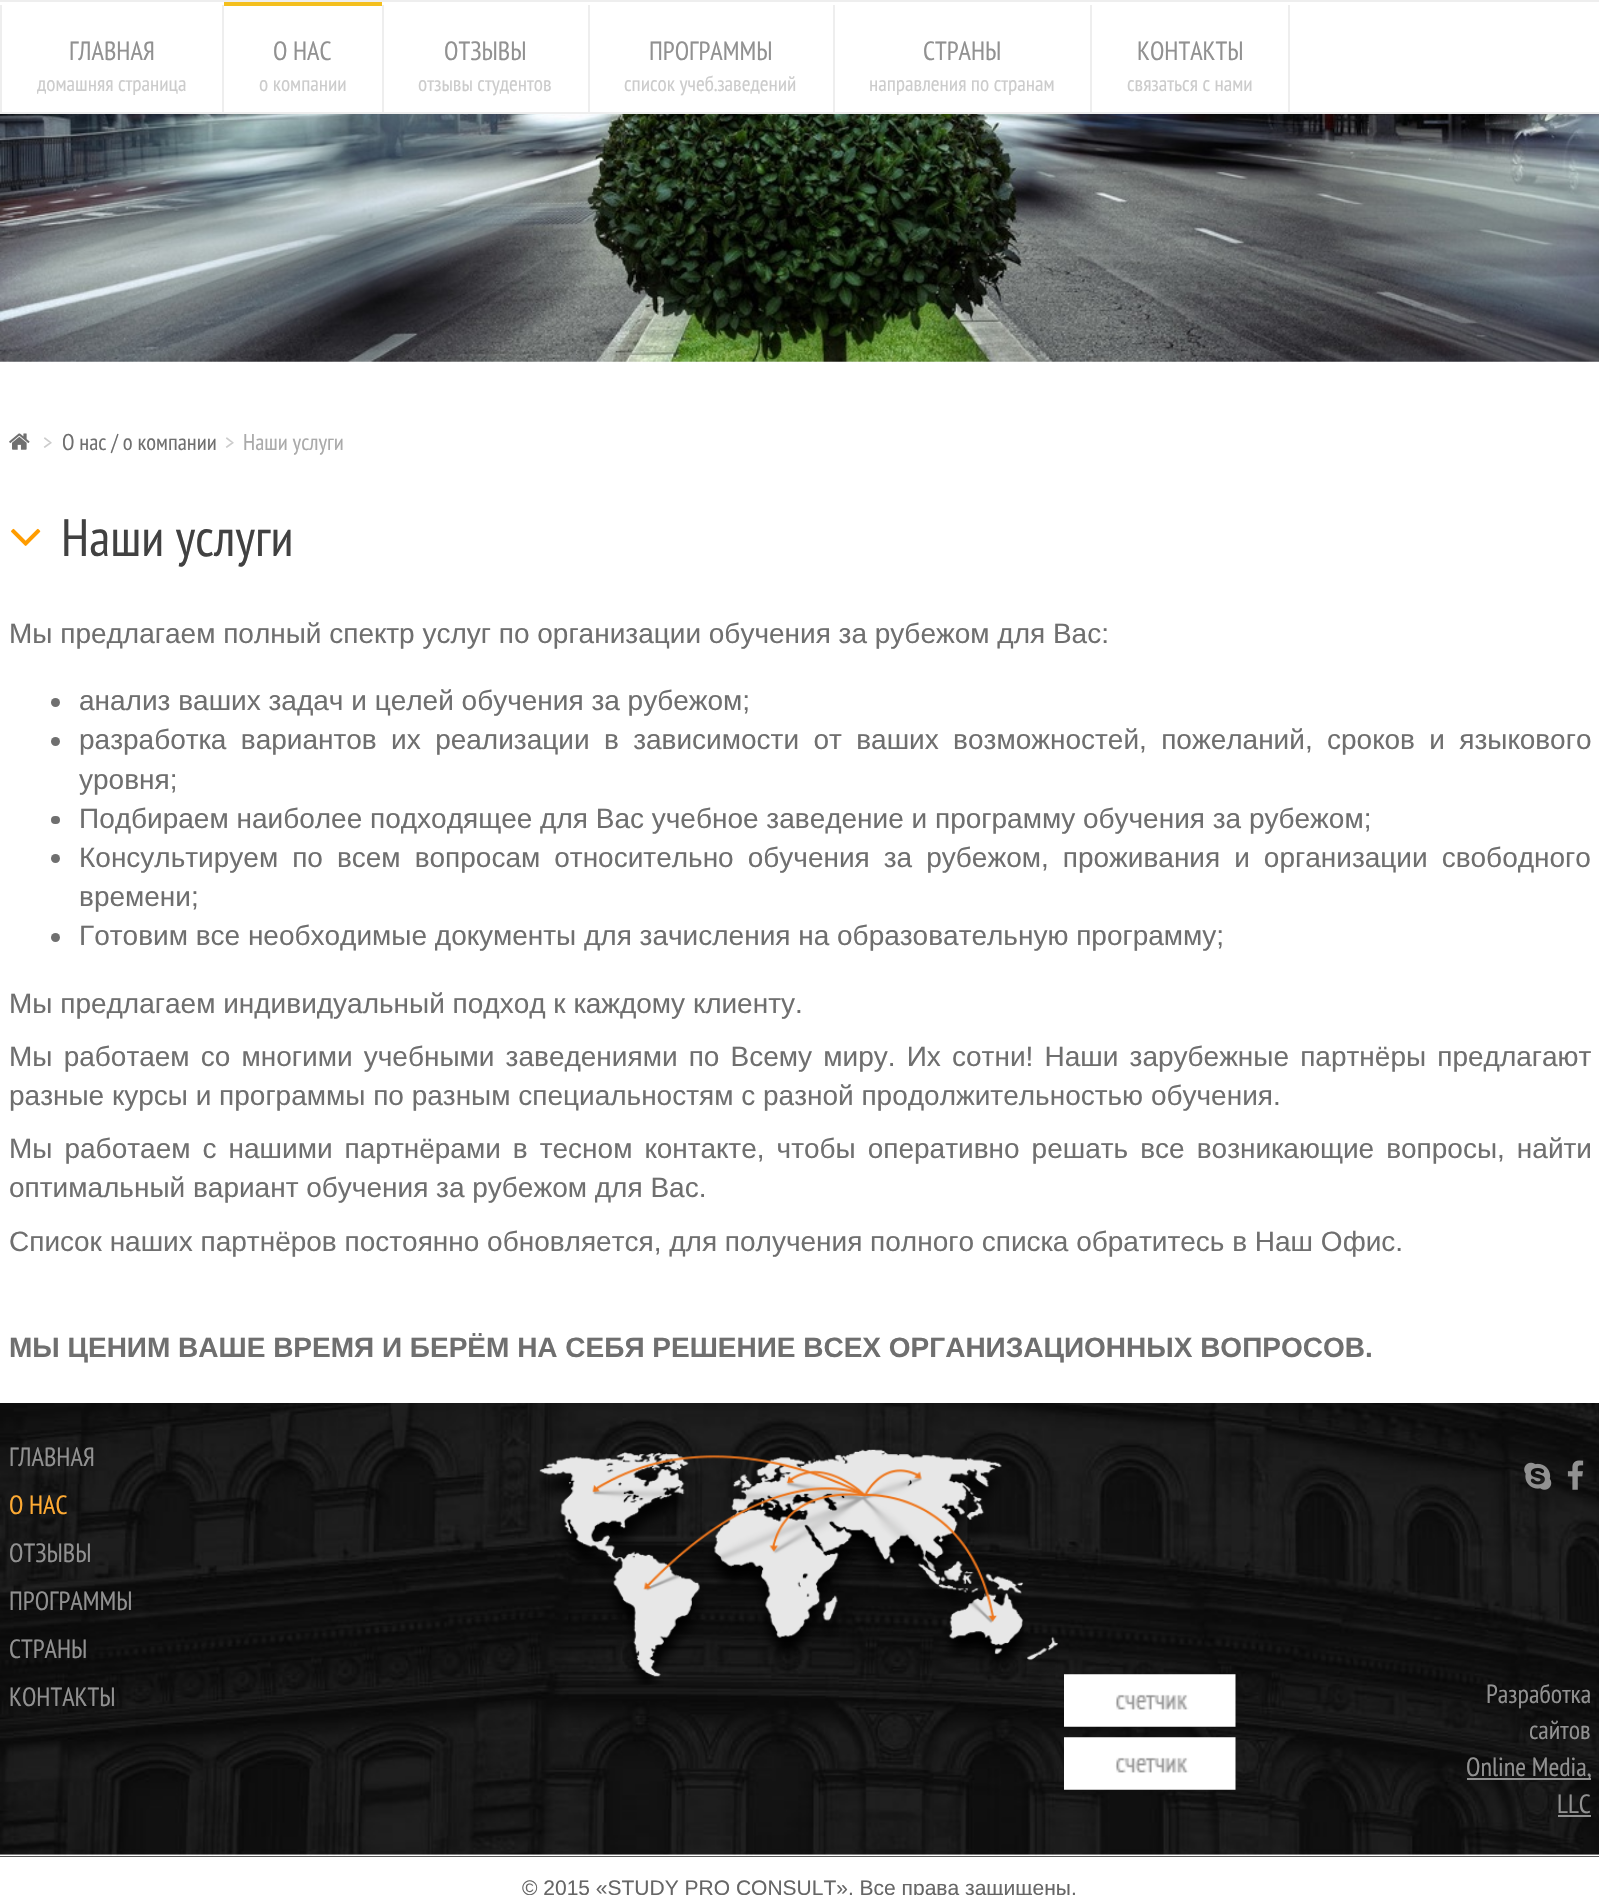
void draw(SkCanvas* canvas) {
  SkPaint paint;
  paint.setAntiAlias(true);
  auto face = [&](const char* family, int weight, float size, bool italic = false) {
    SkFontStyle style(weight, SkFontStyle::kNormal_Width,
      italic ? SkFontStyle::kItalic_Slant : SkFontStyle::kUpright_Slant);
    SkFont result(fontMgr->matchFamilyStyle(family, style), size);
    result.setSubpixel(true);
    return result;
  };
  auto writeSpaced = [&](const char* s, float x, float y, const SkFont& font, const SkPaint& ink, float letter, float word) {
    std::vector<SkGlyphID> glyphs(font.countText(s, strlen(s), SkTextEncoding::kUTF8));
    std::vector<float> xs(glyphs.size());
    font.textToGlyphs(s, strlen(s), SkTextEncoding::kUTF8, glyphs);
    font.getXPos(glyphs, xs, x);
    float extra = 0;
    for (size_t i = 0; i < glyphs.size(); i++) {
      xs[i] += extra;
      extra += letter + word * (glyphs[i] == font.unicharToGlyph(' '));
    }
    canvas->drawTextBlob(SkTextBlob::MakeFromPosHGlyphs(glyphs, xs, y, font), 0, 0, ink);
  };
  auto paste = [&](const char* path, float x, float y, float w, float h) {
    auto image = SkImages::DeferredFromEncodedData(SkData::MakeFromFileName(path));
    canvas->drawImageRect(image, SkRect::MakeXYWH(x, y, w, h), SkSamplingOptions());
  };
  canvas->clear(0xffffffff);
  {
    const struct { float x, y, w, h; SkColor color; } items[] = {
      {0, 0, 1599, 2, 0xffeeeeee},
      {0, 112, 1599, 2, 0xffeeeeee},
      {0, 5, 2, 107, 0xffeeeeee},
      {222, 5, 2, 107, 0xffeeeeee},
      {224, 2, 158, 4, 0xfff4bf1e},
      {382, 5, 2, 107, 0xffeeeeee},
      {588, 5, 2, 107, 0xffeeeeee},
      {833, 5, 2, 107, 0xffeeeeee},
      {1288, 5, 2, 107, 0xffeeeeee},
      {1090, 5, 2, 107, 0xffeeeeee},
    };
    for (auto [x, y, w, h, color] : items) {
      paint.setColor(color);
      canvas->drawRect(SkRect::MakeXYWH(x, y, w, h), paint);
    }
  }
  paste("img/1.png", 0, 114, 1599, 248);
  paste("img/2.png", 9, 433, 21, 17);
  paste("img/3.png", 11, 528, 30, 18);
  paint.setColor(0xff6f6f6f);
  canvas->drawCircle(55.5f, 702.5f, 4.5f, paint);
  canvas->drawCircle(55.5f, 741.5f, 4.5f, paint);
  canvas->drawRoundRect(SkRect::MakeXYWH(51, 816, 9, 8), 4, 4, paint);
  canvas->drawCircle(55.5f, 858.5f, 4.5f, paint);
  canvas->drawCircle(55.5f, 937.5f, 4.5f, paint);
  paint.setColor(0xff1f1f1f);
  canvas->drawRect(SkRect::MakeXYWH(0, 1856, 1599, 1), paint);
  paste("img/4.png", 0, 1403, 1599, 454);
  paste("img/5.png", 539, 1449, 519, 236);
  paste("img/6.png", 1524, 1462, 28, 28);
  paste("img/7.png", 1567, 1460, 17, 30);
  paste("img/8.png", 1064, 1674, 172, 53);
  paste("img/9.png", 1064, 1737, 172, 53);
  paint.setColor(0xff919191);
  canvas->drawRect(SkRect::MakeXYWH(1467, 1778, 124, 2), paint);
  canvas->drawRect(SkRect::MakeXYWH(1558, 1815, 33, 2), paint);
  auto f0 = face("PT Sans Narrow", 400, 26.25f);
  canvas->drawString("ГЛАВНАЯ", 69, 60, f0, paint);
  canvas->save();
  canvas->clipRect(SkRect::MakeXYWH(37, 68, 150, 27));
  auto f1 = face("PT Sans Narrow", 400, 21.25f);
  paint.setColor(0xffcccccc);
  canvas->drawString("домашняя страница", 37, 91, f1, paint);
  canvas->restore();
  paint.setColor(0xff919191);
  canvas->drawString("О НАС", 273, 60, f0, paint);
  paint.setColor(0xffcccccc);
  canvas->drawString("о компании", 259, 91, f1, paint);
  paint.setColor(0xff919191);
  canvas->drawString("ОТЗЫВЫ", 444, 60, f0, paint);
  paint.setColor(0xffcccccc);
  canvas->drawString("отзывы студентов", 418, 91, f1, paint);
  paint.setColor(0xff919191);
  canvas->drawString("ПРОГРАММЫ", 649, 60, f0, paint);
  paint.setColor(0xffcccccc);
  canvas->drawString("список учеб.заведений", 624, 91, f1, paint);
  paint.setColor(0xff919191);
  canvas->drawString("СТРАНЫ", 923, 60, f0, paint);
  canvas->save();
  canvas->clipRect(SkRect::MakeXYWH(870, 68, 185, 27));
  paint.setColor(0xffcccccc);
  canvas->drawString("направления по странам", 869, 91, f1, paint);
  canvas->restore();
  paint.setColor(0xff919191);
  canvas->drawString("КОНТАКТЫ", 1137, 60, f0, paint);
  paint.setColor(0xffcccccc);
  canvas->drawString("связаться с нами", 1127, 91, f1, paint);
  auto f2 = face("PT Sans Narrow", 400, 22.75f);
  canvas->drawString(">", 43, 450, f2, paint);
  paint.setColor(0xff6f6f6f);
  canvas->drawString("О нас / о компании", 62, 450, f2, paint);
  paint.setColor(0xffcccccc);
  canvas->drawString(">", 225, 450, f2, paint);
  paint.setColor(0xffaaaaaa);
  canvas->drawString("Наши услуги", 243, 450, f2, paint);
  auto f3 = face("PT Sans Narrow", 400, 52.5f);
  paint.setColor(0xff414141);
  canvas->drawString("Наши услуги", 61, 556, f3, paint);
  auto f4 = face("Liberation Sans", 400, 28);
  paint.setColor(0xff6f6f6f);
  canvas->drawString("Мы предлагаем полный спектр услуг по организации обучения за рубежом для Вас:", 9, 643, f4, paint);
  canvas->drawString("анализ ваших задач и целей обучения за рубежом;", 79, 710, f4, paint);
  writeSpaced("разработка вариантов их реализации в зависимости от ваших возможностей, пожеланий, сроков и языкового", 79, 749, f4, paint, 0, 6.6f);
  canvas->drawString("уровня;", 79, 789, f4, paint);
  canvas->drawString("Подбираем наиболее подходящее для Вас учебное заведение и программу обучения за рубежом;", 79, 828, f4, paint);
  writeSpaced("Консультируем по всем вопросам относительно обучения за рубежом, проживания и организации свободного", 79, 867, f4, paint, 0, 6.25f);
  {
    const struct { const char* s; float x, y; } items[] = {
      {"времени;", 79, 906},
      {"Готовим все необходимые документы для зачисления на образовательную программу;", 79, 945},
      {"Мы предлагаем индивидуальный подход к каждому клиенту.", 9, 1013},
    };
    for (auto [s, x, y] : items) {
      canvas->drawString(s, x, y, f4, paint);
    }
  }
  writeSpaced("Мы работаем со многими учебными заведениями по Всему миру. Их сотни! Наши зарубежные партнёры предлагают", 9, 1066, f4, paint, 0, 3.4f);
  canvas->drawString("разные курсы и программы по разным специальностям с разной продолжительностью обучения.", 9, 1105, f4, paint);
  writeSpaced("Мы работаем с нашими партнёрами в тесном контакте, чтобы оперативно решать все возникающие вопросы, найти", 9, 1158, f4, paint, 0, 4.25f);
  canvas->drawString("оптимальный вариант обучения за рубежом для Вас.", 9, 1197, f4, paint);
  canvas->drawString("Список наших партнёров постоянно обновляется, для получения полного списка обратитесь в Наш Офис.", 9, 1251, f4, paint);
  auto f5 = face("Liberation Sans", 700, 28);
  canvas->drawString("МЫ ЦЕНИМ ВАШЕ ВРЕМЯ И БЕРЁМ НА СЕБЯ РЕШЕНИЕ ВСЕХ ОРГАНИЗАЦИОННЫХ ВОПРОСОВ.", 9, 1357, f5, paint);
  paint.setColor(0xff919191);
  canvas->drawString("ГЛАВНАЯ", 9, 1466, f0, paint);
  paint.setColor(0xfffeaa33);
  canvas->drawString("О НАС", 9, 1514, f0, paint);
  paint.setColor(0xff919191);
  {
    const struct { const char* s; float x, y; } items[] = {
      {"ОТЗЫВЫ", 9, 1562},
      {"ПРОГРАММЫ", 9, 1610},
      {"СТРАНЫ", 9, 1658},
      {"КОНТАКТЫ", 9, 1706},
      {"Разработка", 1486, 1703},
      {"сайтов", 1529, 1739},
      {"Online Media,", 1466, 1776},
      {"LLC", 1557, 1813},
    };
    for (auto [s, x, y] : items) {
      canvas->drawString(s, x, y, f0, paint);
    }
  }
  auto f6 = face("Liberation Sans", 400, 21);
  paint.setColor(0xff666666);
  canvas->drawString("© 2015 «STUDY PRO CONSULT». Все права защищены.", 522, 1895, f6, paint);
}
